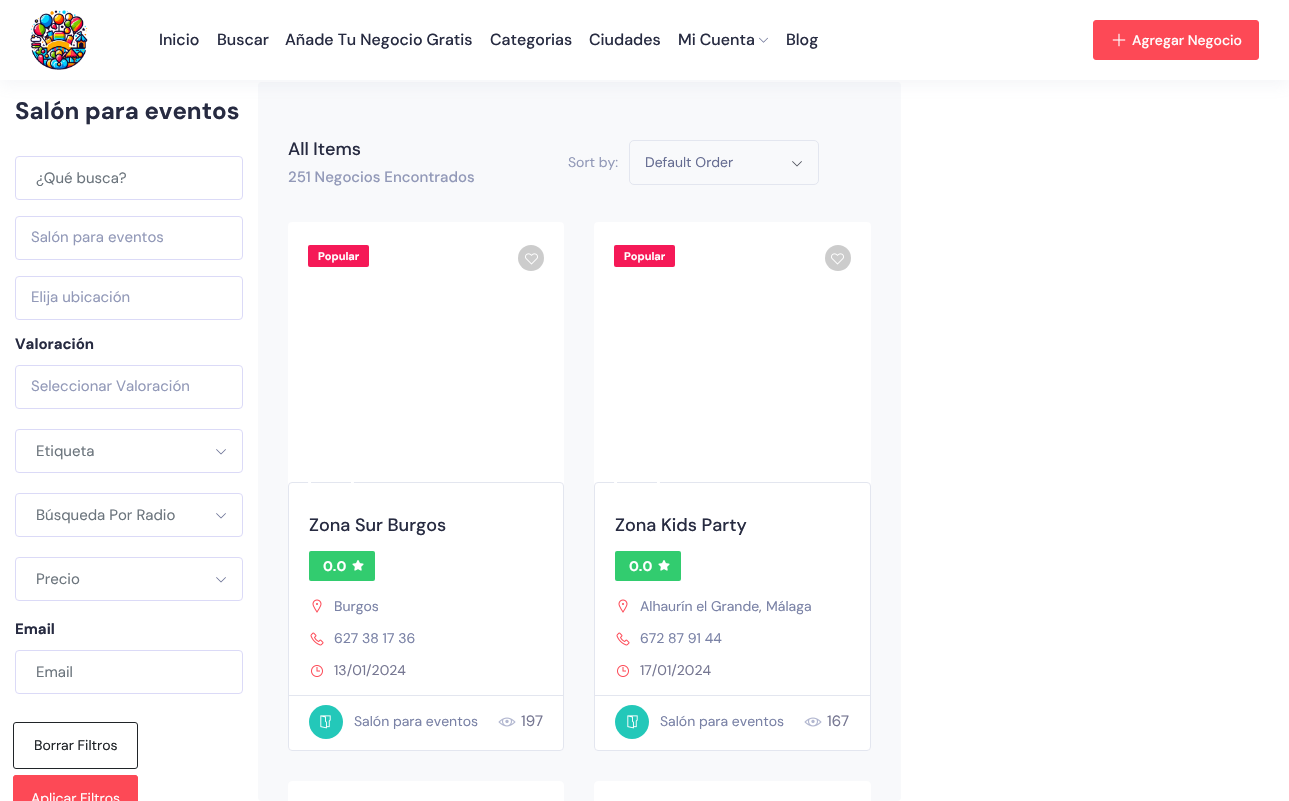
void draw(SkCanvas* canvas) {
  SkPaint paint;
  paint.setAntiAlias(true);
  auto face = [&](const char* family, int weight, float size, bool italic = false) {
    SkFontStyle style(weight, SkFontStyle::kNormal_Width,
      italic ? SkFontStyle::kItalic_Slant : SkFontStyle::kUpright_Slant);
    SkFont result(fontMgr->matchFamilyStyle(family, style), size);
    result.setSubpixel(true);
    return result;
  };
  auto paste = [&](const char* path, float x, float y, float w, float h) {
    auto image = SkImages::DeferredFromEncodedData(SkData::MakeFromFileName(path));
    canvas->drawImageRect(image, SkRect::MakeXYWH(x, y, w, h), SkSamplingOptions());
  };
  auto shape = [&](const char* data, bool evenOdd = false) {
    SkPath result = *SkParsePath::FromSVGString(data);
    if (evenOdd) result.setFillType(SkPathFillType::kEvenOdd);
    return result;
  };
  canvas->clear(0xffffffff);
  paint.setColor(0xfff8f9fb);
  canvas->drawRoundRect(SkRect::MakeXYWH(258, 82, 643, 719), 4, 4, paint);
  paint.setColor(0x1a9299b8);
  paint.setMaskFilter(SkMaskFilter::MakeBlur(kNormal_SkBlurStyle, 7.5f));
  canvas->drawRect(SkRect::MakeXYWH(0, 5, 1289, 80), paint);
  paint.setMaskFilter(nullptr);
  paint.setColor(0xffffffff);
  canvas->drawRect(SkRect::MakeXYWH(0, 0, 1289, 80), paint);
  paste("img/1.png", 30, 10, 58, 60);
  paste("img/2.png", 759, 37, 9, 6);
  paint.setColor(0xfffd4956);
  canvas->drawRoundRect(SkRect::MakeXYWH(1093.5f, 20.5f, 165, 39), 2.5f, 2.5f, paint);
  paint.setStroke(true);
  paint.setStrokeWidth(1);
  canvas->drawRoundRect(SkRect::MakeXYWH(1093.5f, 20.5f, 165, 39), 2.5f, 2.5f, paint);
  paste("img/3.png", 1112, 33, 14, 14);
  paint.setColor(0xffdbdaf7);
  canvas->drawRoundRect(SkRect::MakeXYWH(15.5f, 156.5f, 227, 43), 3.5f, 3.5f, paint);
  canvas->drawRoundRect(SkRect::MakeXYWH(15.5f, 216.5f, 227, 43), 3.5f, 3.5f, paint);
  canvas->drawRoundRect(SkRect::MakeXYWH(15.5f, 276.5f, 227, 43), 3.5f, 3.5f, paint);
  canvas->drawRoundRect(SkRect::MakeXYWH(15.5f, 365.5f, 227, 43), 3.5f, 3.5f, paint);
  canvas->drawRoundRect(SkRect::MakeXYWH(15.5f, 429.5f, 227, 43), 3.5f, 3.5f, paint);
  paste("img/4.png", 216, 449, 10, 6);
  canvas->drawRoundRect(SkRect::MakeXYWH(15.5f, 493.5f, 227, 43), 3.5f, 3.5f, paint);
  paste("img/4.png", 216, 513, 10, 6);
  canvas->drawRoundRect(SkRect::MakeXYWH(15.5f, 557.5f, 227, 43), 3.5f, 3.5f, paint);
  paste("img/4.png", 216, 577, 10, 6);
  canvas->drawRoundRect(SkRect::MakeXYWH(15.5f, 650.5f, 227, 43), 3.5f, 3.5f, paint);
  paint.setColor(0xff202428);
  canvas->drawRoundRect(SkRect::MakeXYWH(13.5f, 722.5f, 124, 46), 2.5f, 2.5f, paint);
  paint.setStroke(false);
  paint.setColor(0xfffd4956);
  canvas->drawPath(shape("M16 775H135C136.5 775 138 776.5 138 778V801H13V778C13 776.5 14.5 775 16 775Z"), paint);
  paint.setStroke(true);
  canvas->drawRoundRect(SkRect::MakeXYWH(13.5f, 775.5f, 124, 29), 2.5f, 2.5f, paint);
  paint.setColor(0xffe3e6ef);
  canvas->drawRoundRect(SkRect::MakeXYWH(629.5f, 140.5f, 189, 44), 4.5f, 4.5f, paint);
  paste("img/5.png", 792, 161, 10, 6);
  paint.setStroke(false);
  paint.setColor(0xffffffff);
  canvas->drawRoundRect(SkRect::MakeXYWH(288, 222, 276, 529), 4, 4, paint);
  paint.setColor(0xfff51957);
  canvas->drawRoundRect(SkRect::MakeXYWH(308, 245, 61, 22), 2, 2, paint);
  paint.setColor(0xffcccccc);
  canvas->drawCircle(531, 258, 13, paint);
  paste("img/6.png", 525, 253, 13, 12);
  paint.setStroke(true);
  paint.setColor(0xffe3e6ef);
  canvas->drawRoundRect(SkRect::MakeXYWH(288.5f, 482.5f, 275, 268), 3.5f, 3.5f, paint);
  paint.setStrokeWidth(3);
  paint.setColor(0xffffffff);
  canvas->drawCircle(331, 482, 21.5f, paint);
  paint.setStroke(false);
  paint.setColor(0xff32cc6f);
  canvas->drawRoundRect(SkRect::MakeXYWH(309, 551, 66, 30), 2, 2, paint);
  paste("img/7.png", 352, 560, 12, 11);
  paste("img/8.png", 312, 599, 10, 14);
  paste("img/9.png", 310, 632, 14, 14);
  paste("img/10.png", 311, 665, 12, 12);
  paint.setColor(0xffe3e6ef);
  canvas->drawRect(SkRect::MakeXYWH(289, 695, 274, 1), paint);
  paint.setColor(0xff23c8b9);
  canvas->drawCircle(326, 722, 17, paint);
  paste("img/11.png", 320, 715, 11, 14);
  paste("img/12.png", 498, 717, 18, 10);
  paint.setColor(0xffffffff);
  canvas->drawRoundRect(SkRect::MakeXYWH(594, 222, 277, 529), 4, 4, paint);
  paint.setColor(0xfff51957);
  canvas->drawRoundRect(SkRect::MakeXYWH(614, 245, 61, 22), 2, 2, paint);
  paint.setColor(0xffcccccc);
  canvas->drawCircle(838, 258, 13, paint);
  paste("img/6.png", 831, 253, 13, 12);
  paint.setStroke(true);
  paint.setStrokeWidth(1);
  paint.setColor(0xffe3e6ef);
  canvas->drawRoundRect(SkRect::MakeXYWH(594.5f, 482.5f, 276, 268), 3.5f, 3.5f, paint);
  paint.setStrokeWidth(3);
  paint.setColor(0xffffffff);
  canvas->drawCircle(637, 482, 21.5f, paint);
  paint.setStroke(false);
  paint.setColor(0xff32cc6f);
  canvas->drawRoundRect(SkRect::MakeXYWH(615, 551, 66, 30), 2, 2, paint);
  paste("img/7.png", 658, 560, 12, 11);
  paste("img/8.png", 618, 599, 10, 14);
  paste("img/9.png", 616, 632, 14, 14);
  paste("img/10.png", 617, 665, 12, 12);
  paint.setColor(0xffe3e6ef);
  canvas->drawRect(SkRect::MakeXYWH(595, 695, 275, 1), paint);
  paint.setColor(0xff23c8b9);
  canvas->drawCircle(632, 722, 17, paint);
  paste("img/11.png", 627, 715, 11, 14);
  paste("img/12.png", 804, 717, 18, 10);
  paint.setColor(0xffffffff);
  canvas->drawPath(shape("M292 781H560C562 781 564 783 564 785V801H288V785C288 783 290 781 292 781Z"), paint);
  canvas->drawPath(shape("M598 781H867C869 781 871 783 871 785V801H594V785C594 783 596 781 598 781Z"), paint);
  auto f0 = face("DM Sans", 500, 16);
  paint.setColor(0xff272b41);
  {
    const struct { const char* s; float x, y; } items[] = {
      {"Inicio", 159, 45},
      {"Buscar", 217, 45},
      {"Añade Tu Negocio Gratis", 285, 45},
      {"Categorias", 490, 45},
      {"Ciudades", 589, 45},
      {"Mi Cuenta", 678, 45},
      {"Blog", 786, 45},
    };
    for (auto [s, x, y] : items) {
      canvas->drawString(s, x, y, f0, paint);
    }
  }
  auto f1 = face("DM Sans", 500, 14);
  paint.setColor(0xffffffff);
  canvas->drawString("Agregar Negocio", 1132, 45, f1, paint);
  auto f2 = face("DM Sans", 700, 24);
  paint.setColor(0xff272b41);
  canvas->drawString("Salón para eventos", 15, 119, f2, paint);
  auto f3 = face("DM Sans", 400, 15);
  paint.setColor(0xff6c757d);
  canvas->drawString("¿Qué busca?", 36, 183, f3, paint);
  paint.setColor(0xff9299b8);
  canvas->drawString("Salón para eventos", 31, 242, f3, paint);
  canvas->drawString("Elija ubicación", 31, 302, f3, paint);
  auto f4 = face("DM Sans", 700, 15);
  paint.setColor(0xff272b41);
  canvas->drawString("Valoración", 15, 349, f4, paint);
  paint.setColor(0xff9299b8);
  canvas->drawString("Seleccionar Valoración", 31, 391, f3, paint);
  paint.setColor(0xff6c757d);
  {
    const struct { const char* s; float x, y; } items[] = {
      {"Etiqueta", 36, 456},
      {"Búsqueda Por Radio", 36, 520},
      {"Precio", 36, 584},
    };
    for (auto [s, x, y] : items) {
      canvas->drawString(s, x, y, f3, paint);
    }
  }
  paint.setColor(0xff272b41);
  canvas->drawString("Email", 15, 634, f4, paint);
  paint.setColor(0xff6c757d);
  canvas->drawString("Email", 36, 677, f3, paint);
  auto f5 = face("DM Sans", 400, 14);
  paint.setColor(0xff202428);
  canvas->drawString("Borrar Filtros", 34, 750, f5, paint);
  paint.setColor(0xffffffff);
  canvas->drawString("Aplicar Filtros", 31, 803, f5, paint);
  auto f6 = face("DM Sans", 500, 18);
  paint.setColor(0xff272b41);
  canvas->drawString("All Items", 288, 155, f6, paint);
  auto f7 = face("DM Sans", 500, 15);
  paint.setColor(0xff9299b8);
  canvas->drawString("251 Negocios Encontrados", 288, 182, f7, paint);
  canvas->drawString("Sort by:", 568, 167, f5, paint);
  paint.setColor(0xff666d92);
  canvas->drawString("Default Order", 645, 167, f5, paint);
  auto f8 = face("DM Sans", 700, 11);
  paint.setColor(0xffffffff);
  canvas->drawString("Popular", 318, 260, f8, paint);
  paint.setColor(0xff272b41);
  canvas->drawString("Zona Sur Burgos", 309, 531, f6, paint);
  auto f9 = face("DM Sans", 700, 14);
  paint.setColor(0xffffffff);
  canvas->drawString("0.0", 323, 571, f9, paint);
  paint.setColor(0xff7a82a6);
  canvas->drawString("Burgos", 334, 611, f5, paint);
  canvas->drawString("627 38 17 36", 334, 643, f5, paint);
  paint.setColor(0xff767792);
  canvas->drawString("13/01/2024", 334, 675, f5, paint);
  paint.setColor(0xff7a82a6);
  canvas->drawString("Salón para eventos", 354, 726, f5, paint);
  paint.setColor(0xff767792);
  canvas->drawString("197", 521, 726, f3, paint);
  paint.setColor(0xffffffff);
  canvas->drawString("Popular", 624, 260, f8, paint);
  paint.setColor(0xff272b41);
  canvas->drawString("Zona Kids Party", 615, 531, f6, paint);
  paint.setColor(0xffffffff);
  canvas->drawString("0.0", 629, 571, f9, paint);
  paint.setColor(0xff7a82a6);
  canvas->drawString("Alhaurín el Grande", 640, 611, f5, paint);
  paint.setColor(0xff767792);
  canvas->drawString(",", 759, 611, f5, paint);
  paint.setColor(0xff7a82a6);
  canvas->drawString("Málaga", 766, 611, f5, paint);
  canvas->drawString("672 87 91 44", 640, 643, f5, paint);
  paint.setColor(0xff767792);
  canvas->drawString("17/01/2024", 640, 675, f5, paint);
  paint.setColor(0xff7a82a6);
  canvas->drawString("Salón para eventos", 660, 726, f5, paint);
  paint.setColor(0xff767792);
  canvas->drawString("167", 827, 726, f3, paint);
}
